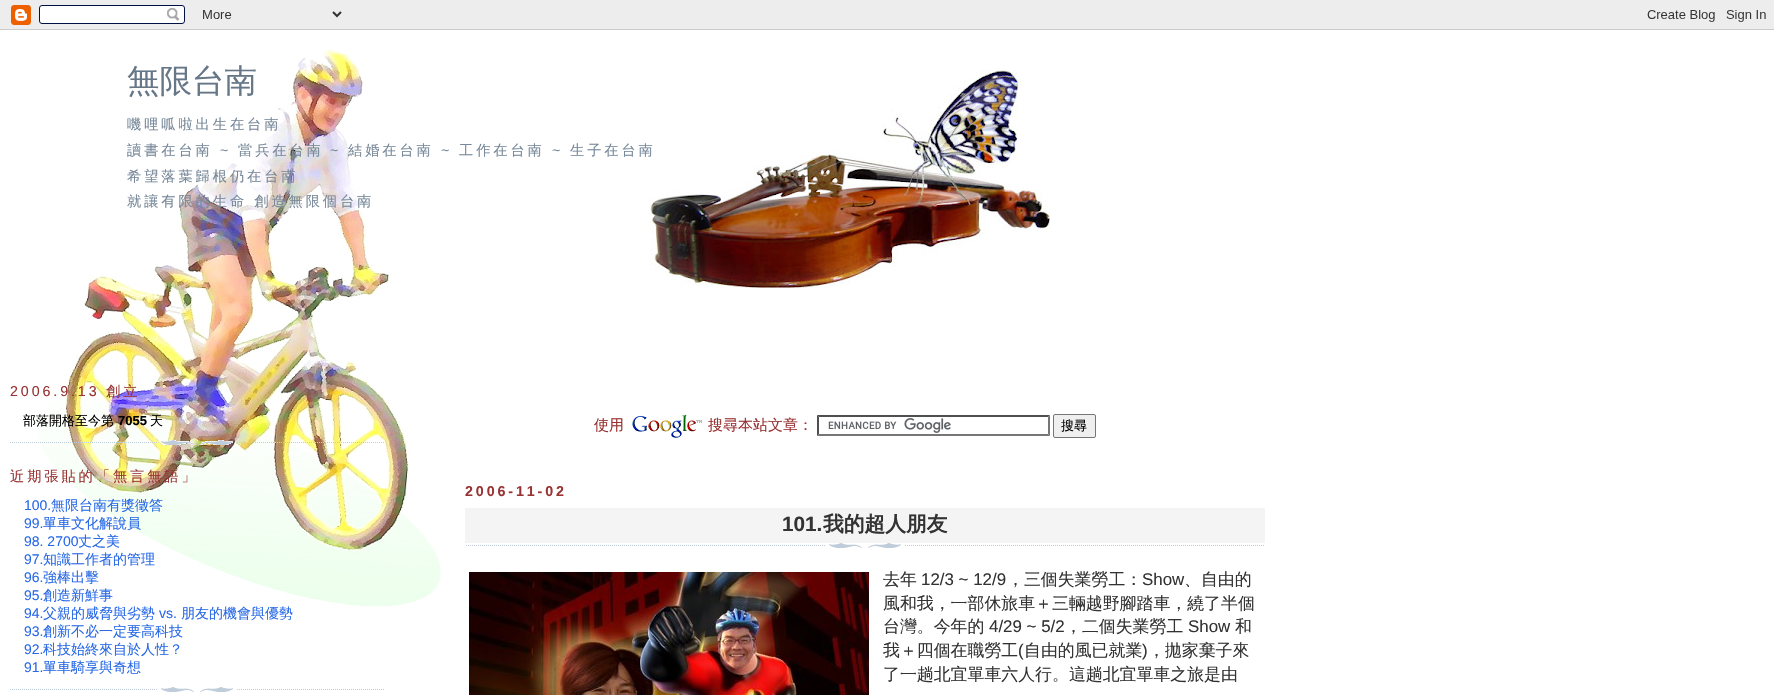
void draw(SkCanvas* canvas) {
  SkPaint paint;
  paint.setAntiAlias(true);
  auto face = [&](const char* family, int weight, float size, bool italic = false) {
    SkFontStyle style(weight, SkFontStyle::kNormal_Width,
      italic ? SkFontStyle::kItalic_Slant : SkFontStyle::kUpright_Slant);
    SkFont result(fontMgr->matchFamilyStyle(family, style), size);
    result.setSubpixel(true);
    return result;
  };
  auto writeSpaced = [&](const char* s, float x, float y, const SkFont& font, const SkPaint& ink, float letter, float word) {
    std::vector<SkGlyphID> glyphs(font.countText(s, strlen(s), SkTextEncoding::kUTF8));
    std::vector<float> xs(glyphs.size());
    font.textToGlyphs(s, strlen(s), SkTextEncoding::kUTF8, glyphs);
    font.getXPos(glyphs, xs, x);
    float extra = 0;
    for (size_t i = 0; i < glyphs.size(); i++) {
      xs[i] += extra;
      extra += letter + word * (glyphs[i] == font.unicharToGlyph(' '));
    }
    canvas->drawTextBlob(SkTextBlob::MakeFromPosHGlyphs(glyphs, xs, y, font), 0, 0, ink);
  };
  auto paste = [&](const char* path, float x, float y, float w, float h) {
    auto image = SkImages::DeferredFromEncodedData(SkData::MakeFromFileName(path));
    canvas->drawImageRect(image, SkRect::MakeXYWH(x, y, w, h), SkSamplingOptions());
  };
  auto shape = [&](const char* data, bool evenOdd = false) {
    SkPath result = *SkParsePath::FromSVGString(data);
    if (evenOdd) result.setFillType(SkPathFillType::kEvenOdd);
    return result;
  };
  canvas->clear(0xffffffff);
  paste("img/1.png", 38, 50, 403, 557);
  paste("img/2.png", 0, 0, 1774, 30);
  paste("img/3.png", 650, 70, 400, 218);
  paste("img/4.png", 632, 415, 70, 23);
  paste("img/5.png", 828, 418, 123, 15);
  paint.setColor(0xff4f4f4f);
  canvas->drawPath(shape("M817 415H1050L1048 417H819Z"), paint);
  paint.setColor(0xff767676);
  canvas->drawPath(shape("M1050 415V436L1048 434V417Z"), paint);
  canvas->drawPath(shape("M1050 436H817L819 434H1048Z"), paint);
  paint.setColor(0xff4f4f4f);
  canvas->drawPath(shape("M817 436V415L819 417V434Z"), paint);
  paint.setColor(0xffefefef);
  canvas->drawRoundRect(SkRect::MakeXYWH(1053.5f, 414.5f, 42, 23), 1.5f, 1.5f, paint);
  paint.setStroke(true);
  paint.setStrokeWidth(1);
  paint.setColor(0xff767676);
  canvas->drawRoundRect(SkRect::MakeXYWH(1053.5f, 414.5f, 42, 23), 1.5f, 1.5f, paint);
  paint.setStroke(false);
  paint.setColor(0xfff4f4f4);
  canvas->drawRect(SkRect::MakeXYWH(465, 508, 800, 35), paint);
  paste("img/6.png", 466, 543, 798, 5);
  paste("img/7.png", 469, 572, 400, 123);
  paste("img/8.png", 10, 440, 374, 5);
  paste("img/9.png", 10, 687, 374, 5);
  auto f0 = face("WenQuanYi Zen Hei", 500, 32.5f);
  paint.setColor(0xff667788);
  canvas->drawString("無限台南", 127, 92, f0, paint);
  auto f1 = face("WenQuanYi Zen Hei", 500, 14.25f);
  paint.setColor(0xff778899);
  writeSpaced("嘰哩呱啦出生在台南", 127, 129, f1, paint, 2.9f, 0);
  writeSpaced("讀書在台南", 127, 155, f1, paint, 2.9f, 0);
  auto f2 = face("Liberation Sans", 400, 14.25f);
  writeSpaced("~", 220, 155, f2, paint, 2.9f, 0);
  writeSpaced("當兵在台南", 238, 155, f1, paint, 2.9f, 0);
  writeSpaced("~", 330, 155, f2, paint, 2.9f, 0);
  writeSpaced("結婚在台南", 348, 155, f1, paint, 2.9f, 0);
  writeSpaced("~", 441, 155, f2, paint, 2.9f, 0);
  writeSpaced("工作在台南", 459, 155, f1, paint, 2.9f, 0);
  writeSpaced("~", 552, 155, f2, paint, 2.9f, 0);
  {
    const struct { const char* s; float x, y; } items[] = {
      {"生子在台南", 570, 155},
      {"希望落葉歸根仍在台南", 127, 181},
      {"就讓有限的生命 創造無限個台南", 127, 206},
    };
    for (auto [s, x, y] : items) {
      writeSpaced(s, x, y, f1, paint, 2.9f, 0);
    }
  }
  auto f3 = face("WenQuanYi Zen Hei", 500, 15);
  paint.setColor(0xff993333);
  canvas->drawString("使用", 594, 430, f3, paint);
  canvas->drawString("搜尋本站文章：", 708, 430, f3, paint);
  auto f4 = face("WenQuanYi Zen Hei", 500, 13);
  paint.setColor(0xff000000);
  canvas->drawString("搜尋", 1061, 430, f4, paint);
  auto f5 = face("Liberation Sans", 700, 14.25f);
  paint.setColor(0xff993333);
  writeSpaced("2006-11-02", 465, 496, f5, paint, 2.9f, 0);
  auto f6 = face("Liberation Sans", 700, 20.75f);
  paint.setColor(0xff333333);
  canvas->drawString("101.", 782, 531, f6, paint);
  auto f7 = face("WenQuanYi Zen Hei", 700, 20.75f);
  canvas->drawString("我的超人朋友", 823, 531, f7, paint);
  auto f8 = face("WenQuanYi Zen Hei", 500, 16.9f);
  canvas->drawString("去年", 883, 585, f8, paint);
  auto f9 = face("Liberation Sans", 400, 16.9f);
  canvas->drawString("12/3 ~ 12/9", 921, 585, f9, paint);
  canvas->drawString("，三個失業勞工：", 1007, 585, f8, paint);
  canvas->drawString("Show", 1142, 585, f9, paint);
  {
    const struct { const char* s; float x, y; } items[] = {
      {"、自由的", 1184, 585},
      {"風和我，一部休旅車＋三輛越野腳踏車，繞了半個", 883, 609},
      {"台灣。今年的", 883, 632},
    };
    for (auto [s, x, y] : items) {
      canvas->drawString(s, x, y, f8, paint);
    }
  }
  canvas->drawString("4/29 ~ 5/2", 989, 632, f9, paint);
  canvas->drawString("，二個失業勞工", 1065, 632, f8, paint);
  canvas->drawString("Show", 1188, 632, f9, paint);
  canvas->drawString("和", 1235, 632, f8, paint);
  canvas->drawString("我＋四個在職勞工", 883, 656, f8, paint);
  canvas->drawString("(", 1018, 656, f9, paint);
  canvas->drawString("自由的風已就業", 1024, 656, f8, paint);
  canvas->drawString(")", 1142, 656, f9, paint);
  canvas->drawString("，拋家棄子來", 1148, 656, f8, paint);
  canvas->drawString("了一趟北宜單車六人行。這趟北宜單車之旅是由", 883, 680, f8, paint);
  paint.setColor(0xff993333);
  writeSpaced("2006.9.13", 10, 396, f2, paint, 2.9f, 0);
  writeSpaced("創立", 106, 396, f1, paint, 2.9f, 0);
  paint.setColor(0xff000000);
  canvas->drawString("部落開格至今第", 23, 425, f4, paint);
  auto f10 = face("Liberation Sans", 700, 13);
  canvas->drawString("7055", 118, 425, f10, paint);
  canvas->drawString("天", 150, 425, f4, paint);
  paint.setColor(0xff993333);
  writeSpaced("近期張貼的「無言無語」", 10, 481, f1, paint, 2.9f, 0);
  auto f11 = face("Liberation Sans", 400, 14);
  paint.setColor(0xff2869e7);
  canvas->drawString("100.", 24, 510, f11, paint);
  auto f12 = face("WenQuanYi Zen Hei", 500, 14);
  canvas->drawString("無限台南有獎徵答", 51, 510, f12, paint);
  canvas->drawString("99.", 24, 528, f11, paint);
  canvas->drawString("單車文化解說員", 43, 528, f12, paint);
  canvas->drawString("98. 2700", 24, 546, f11, paint);
  canvas->drawString("丈之美", 78, 546, f12, paint);
  canvas->drawString("97.", 24, 564, f11, paint);
  canvas->drawString("知識工作者的管理", 43, 564, f12, paint);
  canvas->drawString("96.", 24, 582, f11, paint);
  canvas->drawString("強棒出擊", 43, 582, f12, paint);
  canvas->drawString("95.", 24, 600, f11, paint);
  canvas->drawString("創造新鮮事", 43, 600, f12, paint);
  canvas->drawString("94.", 24, 618, f11, paint);
  canvas->drawString("父親的威脅與劣勢", 43, 618, f12, paint);
  canvas->drawString("vs.", 159, 618, f11, paint);
  canvas->drawString("朋友的機會與優勢", 181, 618, f12, paint);
  canvas->drawString("93.", 24, 636, f11, paint);
  canvas->drawString("創新不必一定要高科技", 43, 636, f12, paint);
  canvas->drawString("92.", 24, 654, f11, paint);
  canvas->drawString("科技始終來自於人性？", 43, 654, f12, paint);
  canvas->drawString("91.", 24, 672, f11, paint);
  canvas->drawString("單車騎享與奇想", 43, 672, f12, paint);
}
